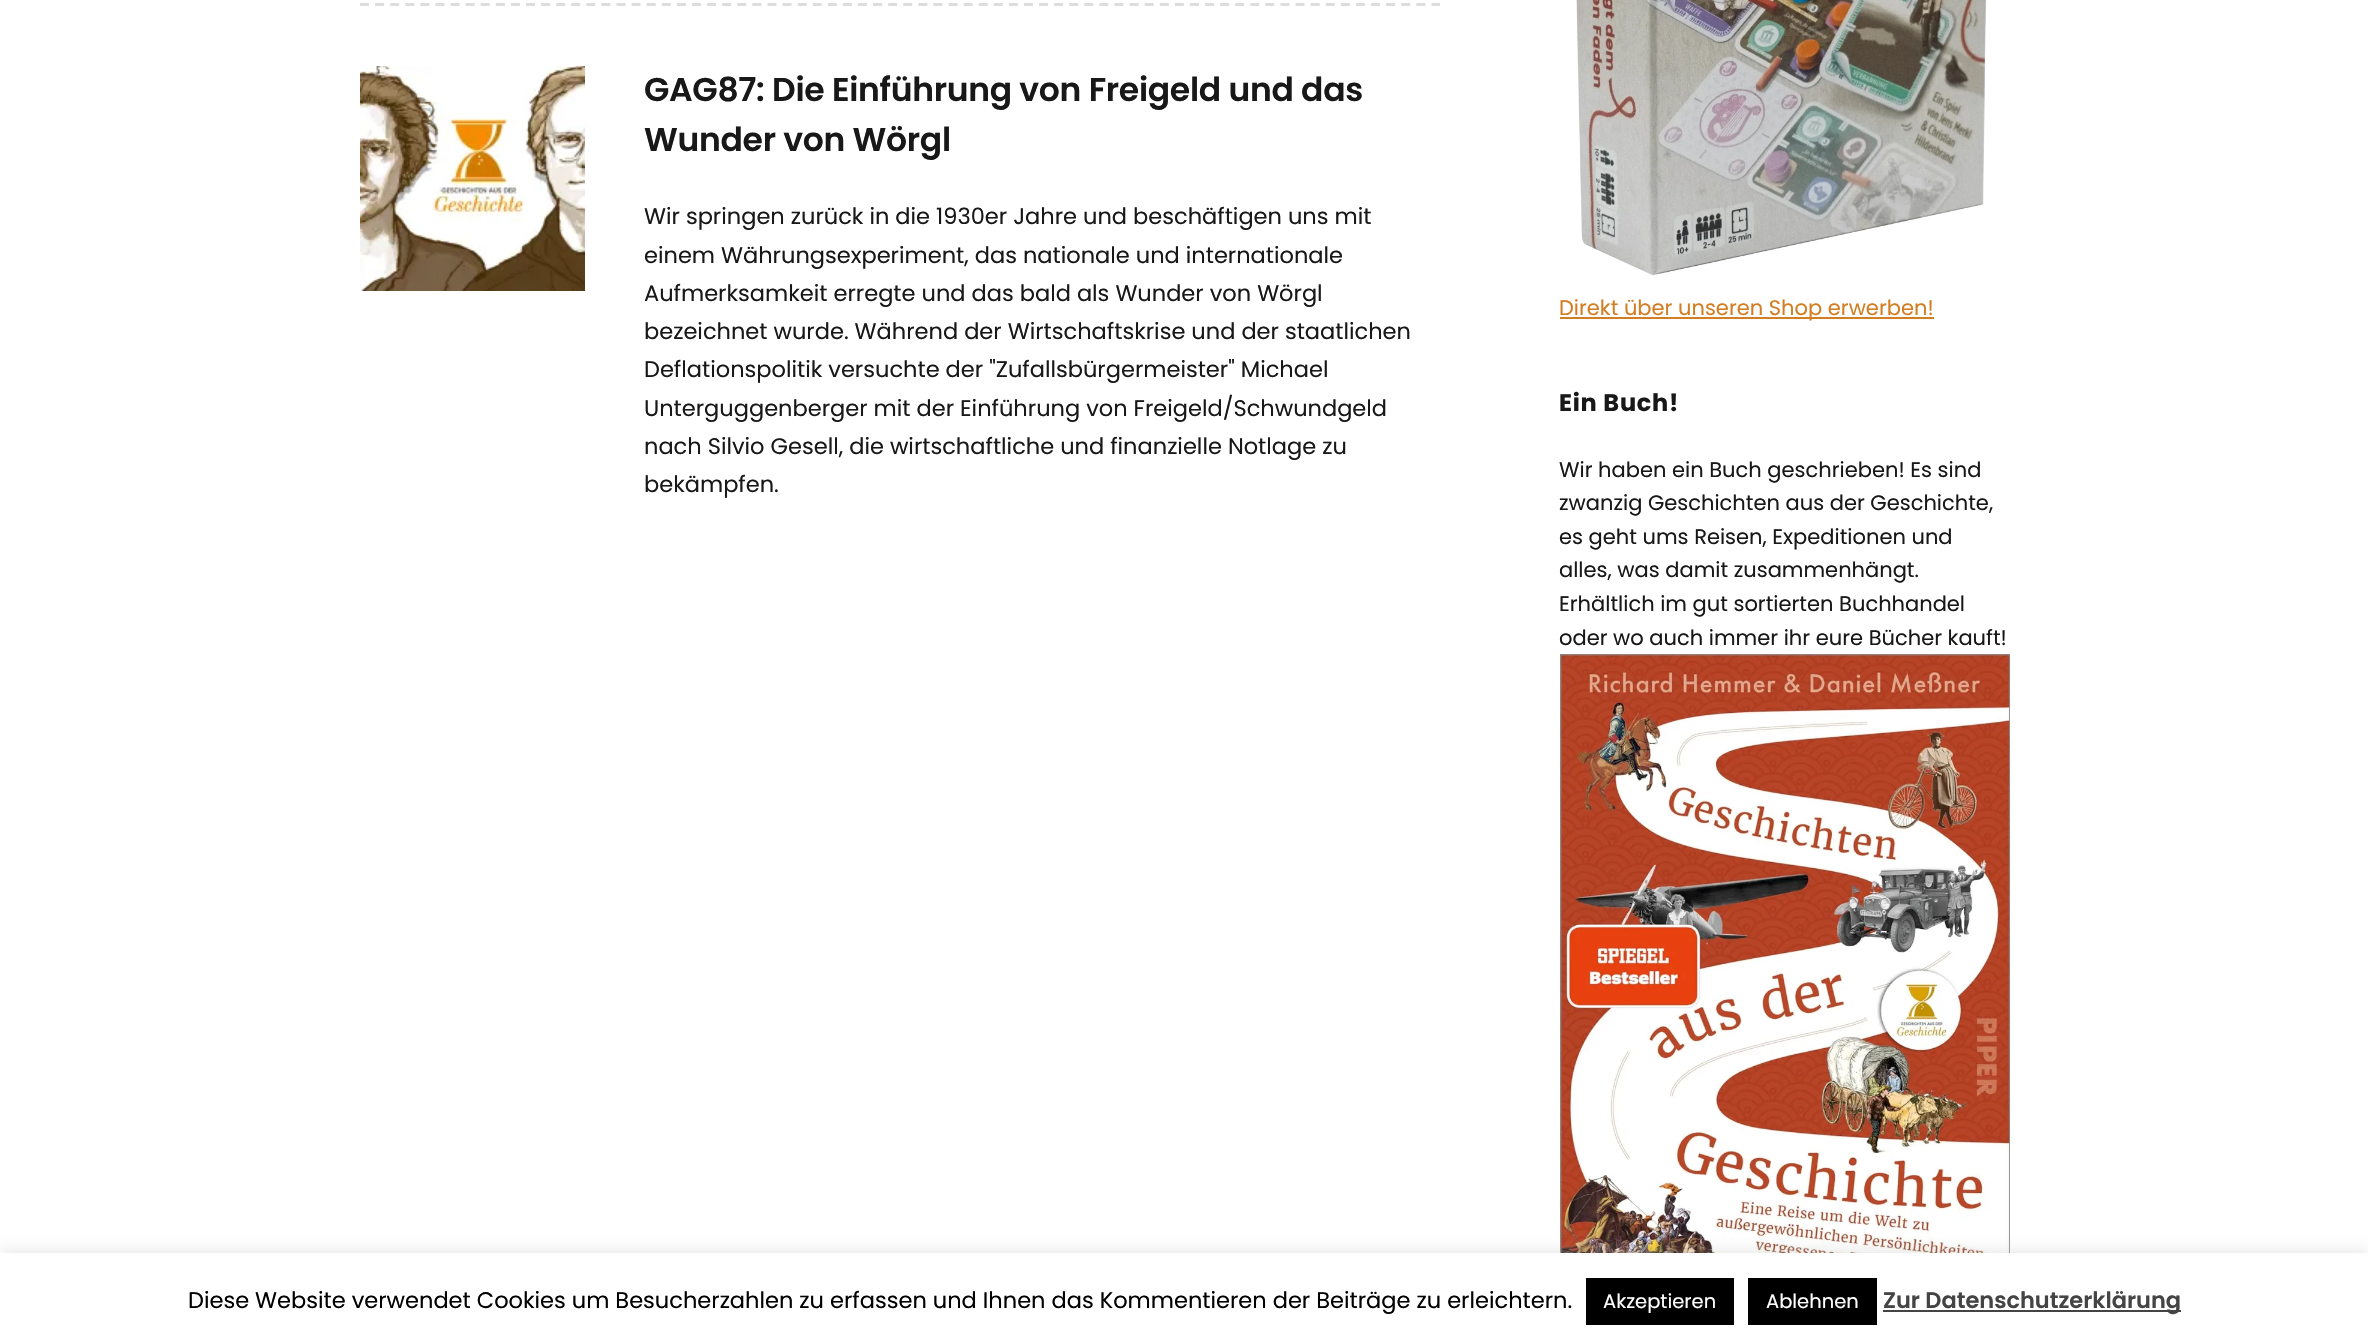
void draw(SkCanvas* canvas) {
  SkPaint paint;
  paint.setAntiAlias(true);
  auto face = [&](const char* family, int weight, float size, bool italic = false) {
    SkFontStyle style(weight, SkFontStyle::kNormal_Width,
      italic ? SkFontStyle::kItalic_Slant : SkFontStyle::kUpright_Slant);
    SkFont result(fontMgr->matchFamilyStyle(family, style), size);
    result.setSubpixel(true);
    return result;
  };
  auto writeSpaced = [&](const char* s, float x, float y, const SkFont& font, const SkPaint& ink, float letter, float word) {
    std::vector<SkGlyphID> glyphs(font.countText(s, strlen(s), SkTextEncoding::kUTF8));
    std::vector<float> xs(glyphs.size());
    font.textToGlyphs(s, strlen(s), SkTextEncoding::kUTF8, glyphs);
    font.getXPos(glyphs, xs, x);
    float extra = 0;
    for (size_t i = 0; i < glyphs.size(); i++) {
      xs[i] += extra;
      extra += letter + word * (glyphs[i] == font.unicharToGlyph(' '));
    }
    canvas->drawTextBlob(SkTextBlob::MakeFromPosHGlyphs(glyphs, xs, y, font), 0, 0, ink);
  };
  auto paste = [&](const char* path, float x, float y, float w, float h) {
    auto image = SkImages::DeferredFromEncodedData(SkData::MakeFromFileName(path));
    canvas->drawImageRect(image, SkRect::MakeXYWH(x, y, w, h), SkSamplingOptions());
  };
  auto shape = [&](const char* data, bool evenOdd = false) {
    SkPath result = *SkParsePath::FromSVGString(data);
    if (evenOdd) result.setFillType(SkPathFillType::kEvenOdd);
    return result;
  };
  canvas->clear(0xffffffff);
  paint.setStroke(true);
  paint.setStrokeWidth(3);
  paint.setColor(0xffdddddd);
  paint.setPathEffect(SkDashPathEffect::Make({{9, 6.09f}}, 0));
  canvas->drawPath(shape("M360 4.5H1440"), paint);
  paint.setPathEffect(nullptr);
  paste("img/1.png", 360, 66, 225, 225);
  paste("img/2.png", 1576, 0, 411, 276);
  paint.setStroke(false);
  paint.setColor(0xffd37e23);
  canvas->drawRect(SkRect::MakeXYWH(1560, 317, 374, 2), paint);
  paste("img/3.png", 1560, 654, 450, 599);
  paint.setColor(0x4dacabab);
  paint.setMaskFilter(SkMaskFilter::MakeBlur(kNormal_SkBlurStyle, 7.5f));
  canvas->drawRect(SkRect::MakeXYWH(0, 1251, 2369, 90), paint);
  paint.setMaskFilter(nullptr);
  {
    const struct { float x, y, w, h; SkColor color; } items[] = {
      {0, 1253, 2368, 89, 0xffffffff},
      {1586, 1278, 148, 47, 0xff000000},
      {1748, 1278, 129, 47, 0xff000000},
      {1883, 1310, 298, 2, 0xff444444},
    };
    for (auto [x, y, w, h, color] : items) {
      paint.setColor(color);
      canvas->drawRect(SkRect::MakeXYWH(x, y, w, h), paint);
    }
  }
  auto f0 = face("Poppins", 600, 33);
  paint.setColor(0xff181818);
  writeSpaced("GAG87: Die Einführung von Freigeld und das", 644, 101, f0, paint, -0.3f, 0);
  writeSpaced("Wunder von Wörgl", 644, 151, f0, paint, -0.3f, 0);
  auto f1 = face("Poppins", 400, 22.5f);
  {
    const struct { const char* s; float x, y; } items[] = {
      {"Wir springen zurück in die 1930er Jahre und beschäftigen uns mit", 644, 224},
      {"einem Währungsexperiment, das nationale und internationale", 644, 263},
      {"Aufmerksamkeit erregte und das bald als Wunder von Wörgl", 644, 301},
      {"bezeichnet wurde. Während der Wirtschaftskrise und der staatlichen", 644, 339},
      {"Deflationspolitik versuchte der \"Zufallsbürgermeister\" Michael", 644, 377},
      {"Unterguggenberger mit der Einführung von Freigeld/Schwundgeld", 644, 416},
      {"nach Silvio Gesell, die wirtschaftliche und finanzielle Notlage zu", 644, 454},
      {"bekämpfen.", 644, 492},
    };
    for (auto [s, x, y] : items) {
      canvas->drawString(s, x, y, f1, paint);
    }
  }
  auto f2 = face("Poppins", 400, 21);
  paint.setColor(0xffd37e23);
  canvas->drawString("Direkt über unseren Shop erwerben!", 1559, 315, f2, paint);
  auto f3 = face("Poppins", 700, 24);
  paint.setColor(0xff181818);
  writeSpaced("Ein Buch!", 1559, 411, f3, paint, 0.75f, 0);
  {
    const struct { const char* s; float x, y; } items[] = {
      {"Wir haben ein Buch geschrieben! Es sind", 1559, 477},
      {"zwanzig Geschichten aus der Geschichte,", 1559, 510},
      {"es geht ums Reisen, Expeditionen und", 1559, 544},
      {"alles, was damit zusammenhängt.", 1559, 577},
      {"Erhältlich im gut sortierten Buchhandel", 1559, 611},
      {"oder wo auch immer ihr eure Bücher kauft!", 1559, 645},
    };
    for (auto [s, x, y] : items) {
      canvas->drawString(s, x, y, f2, paint);
    }
  }
  paint.setColor(0xff000000);
  canvas->drawString("Diese Website verwendet Cookies um Besucherzahlen zu erfassen und Ihnen das Kommentieren der Beiträge zu erleichtern.", 188, 1308, f1, paint);
  auto f4 = face("Poppins", 400, 19.5f);
  paint.setColor(0xffffffff);
  canvas->drawString("Akzeptieren", 1603, 1308, f4, paint);
  canvas->drawString("Ablehnen", 1766, 1308, f4, paint);
  auto f5 = face("Poppins", 600, 22.5f);
  paint.setColor(0xff444444);
  canvas->drawString("Zur Datenschutzerklärung", 1883, 1308, f5, paint);
}
